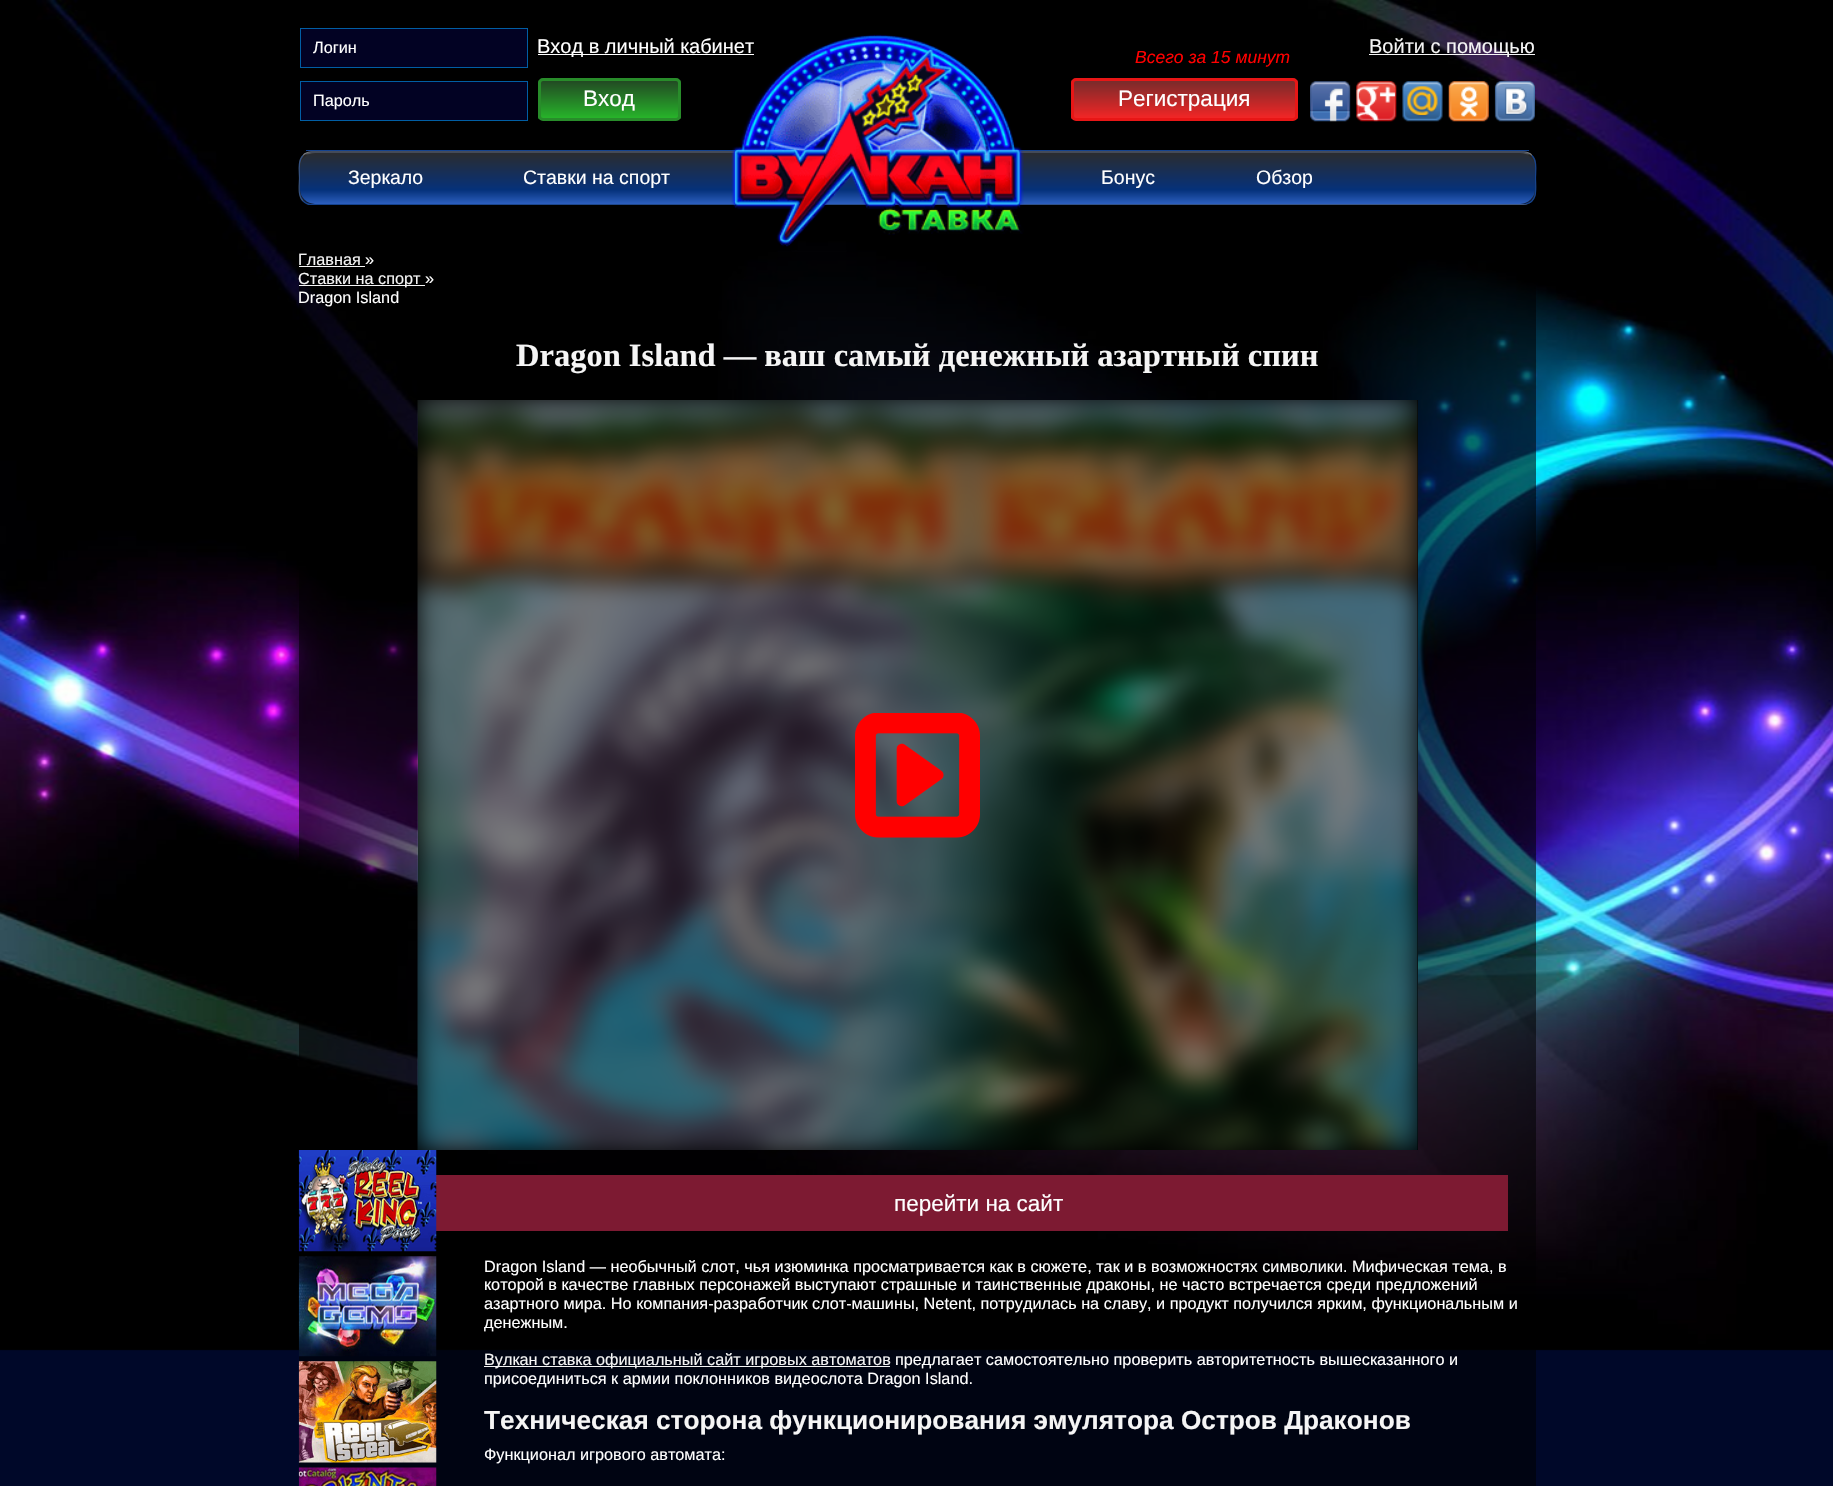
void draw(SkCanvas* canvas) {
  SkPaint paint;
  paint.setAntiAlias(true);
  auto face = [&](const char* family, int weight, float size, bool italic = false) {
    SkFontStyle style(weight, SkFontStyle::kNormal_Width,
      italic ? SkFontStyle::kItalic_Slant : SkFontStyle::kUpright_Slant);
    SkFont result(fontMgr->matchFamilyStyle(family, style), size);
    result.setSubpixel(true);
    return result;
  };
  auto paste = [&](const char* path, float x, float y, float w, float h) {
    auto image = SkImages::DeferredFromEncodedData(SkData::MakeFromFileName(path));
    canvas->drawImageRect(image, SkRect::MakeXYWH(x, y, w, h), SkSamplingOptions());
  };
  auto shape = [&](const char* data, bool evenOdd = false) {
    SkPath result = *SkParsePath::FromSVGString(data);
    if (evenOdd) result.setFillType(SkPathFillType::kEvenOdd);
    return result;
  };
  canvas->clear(0xff000829);
  paste("img/1.png", 0, 0, 1833, 1351);
  paint.setColor(0xff15438e);
  canvas->drawRect(SkRect::MakeXYWH(306, 150, 1223, 1), paint);
  canvas->save();
  canvas->clipPath(shape("M312 151H1523C1530 151 1536 157 1536 164V192C1536 199 1530 205 1523 205H312C305 205 299 199 299 192V164C299 157 305 151 312 151Z"), true);
  {
    const SkColor colors[] = {0xff797c81, 0xff262626, 0xff393939, 0xff0b172f};
    const float stops[] = {0, 0.06f, 0.5f, 1};
    const SkPoint ends[] = {{918, 101}, {918, 153}};
    paint.setShader(SkGradientShader::MakeLinear(ends, colors, stops, 4, SkTileMode::kClamp));
    paint.setAlpha(255);
  }
  canvas->drawRect(SkRect::MakeXYWH(299, 151, 1237, 2), paint);
  {
    const SkColor colors[] = {0xff797c81, 0xff262626, 0xff393939, 0xff0b172f};
    const float stops[] = {0, 0.06f, 0.5f, 1};
    const SkPoint ends[] = {{918, 152}, {918, 204}};
    paint.setShader(SkGradientShader::MakeLinear(ends, colors, stops, 4, SkTileMode::kClamp));
    paint.setAlpha(255);
  }
  canvas->drawRect(SkRect::MakeXYWH(299, 153, 1237, 51), paint);
  {
    const SkColor colors[] = {0xff797c81, 0xff262626, 0xff393939, 0xff0b172f};
    const float stops[] = {0, 0.06f, 0.5f, 1};
    const SkPoint ends[] = {{918, 204}, {918, 255}};
    paint.setShader(SkGradientShader::MakeLinear(ends, colors, stops, 4, SkTileMode::kClamp));
    paint.setAlpha(255);
  }
  canvas->drawRect(SkRect::MakeXYWH(299, 204, 1237, 1), paint);
  canvas->restore();
  paint.setStroke(true);
  paint.setStrokeWidth(1.2f);
  paint.setShader(nullptr);
  paint.setColor(0xff797c81);
  canvas->drawPath(shape("M303 155.5C305 153 308 152 311 152H1524C1527 152 1530 153 1532 155.5"), paint);
  paint.setColor(0xff15438e);
  canvas->drawPath(shape("M1532 155.5C1537.5 161 1535.5 171.5 1535.5 178C1535.5 187 1538.5 201.5 1526 204L311 204.5C308 204.5 305 203 303 201"), paint);
  paint.setColor(0xff335182);
  canvas->drawPath(shape("M303 201C297.5 195.5 299.5 185 299.5 178C299.5 171.5 297.5 161 303 155.5"), paint);
  paint.setStroke(false);
  paint.setColor(0xff020223);
  canvas->drawRect(SkRect::MakeXYWH(300.5f, 28.5f, 227, 39), paint);
  paint.setStroke(true);
  paint.setStrokeWidth(1);
  paint.setColor(0xff015ea4);
  canvas->drawRect(SkRect::MakeXYWH(300.5f, 28.5f, 227, 39), paint);
  paint.setStroke(false);
  paint.setColor(0xffffffff);
  canvas->drawRect(SkRect::MakeXYWH(538, 54, 216, 1), paint);
  paint.setColor(0xfff5f5f5);
  canvas->drawRect(SkRect::MakeXYWH(1369, 54, 166, 1), paint);
  paint.setColor(0xff020223);
  canvas->drawRect(SkRect::MakeXYWH(300.5f, 81.5f, 227, 39), paint);
  paint.setStroke(true);
  paint.setColor(0xff015ea4);
  canvas->drawRect(SkRect::MakeXYWH(300.5f, 81.5f, 227, 39), paint);
  canvas->save();
  canvas->clipPath(shape("M543 78H676C679 78 681 80 681 83V116C681 119 679 121 676 121H543C540 121 538 119 538 116V83C538 80 540 78 543 78Z"), true);
  paint.setStroke(false);
  {
    const SkColor colors[] = {0xff27b62a, 0xff224723};
    const float stops[] = {0, 1};
    const SkPoint ends[] = {{609, 119}, {609, 80}};
    paint.setShader(SkGradientShader::MakeLinear(ends, colors, stops, 2, SkTileMode::kClamp));
    paint.setAlpha(255);
  }
  canvas->drawRect(SkRect::MakeXYWH(538, 80, 143, 39), paint);
  canvas->restore();
  paint.setStroke(true);
  paint.setStrokeWidth(3);
  paint.setShader(nullptr);
  paint.setColor(0xff288c2a);
  canvas->drawRoundRect(SkRect::MakeXYWH(539.5f, 79.5f, 140, 40), 3.5f, 3.5f, paint);
  canvas->save();
  canvas->clipPath(shape("M1076 78H1293C1296 78 1298 80 1298 83V116C1298 119 1296 121 1293 121H1076C1073 121 1071 119 1071 116V83C1071 80 1073 78 1076 78Z"), true);
  paint.setStroke(false);
  {
    const SkColor colors[] = {0xfff52525, 0xff762b2b};
    const float stops[] = {0, 1};
    const SkPoint ends[] = {{1184, 119}, {1184, 80}};
    paint.setShader(SkGradientShader::MakeLinear(ends, colors, stops, 2, SkTileMode::kClamp));
    paint.setAlpha(255);
  }
  canvas->drawRect(SkRect::MakeXYWH(1071, 80, 227, 39), paint);
  canvas->restore();
  paint.setStroke(true);
  paint.setShader(nullptr);
  paint.setColor(0xffe81616);
  canvas->drawRoundRect(SkRect::MakeXYWH(1072.5f, 79.5f, 224, 40), 3.5f, 3.5f, paint);
  paste("img/3.png", 1310, 81, 225, 41);
  paint.setStroke(false);
  {
    const SkColor colors[] = {0xff2c2c2d, 0xff05317a, 0xff2c5fbf};
    const float stops[] = {0, 0.73f, 1};
    const SkPoint ends[] = {{918, 152}, {918, 204}};
    paint.setShader(SkGradientShader::MakeLinear(ends, colors, stops, 3, SkTileMode::kClamp));
    paint.setAlpha(255);
  }
  canvas->drawRoundRect(SkRect::MakeXYWH(300, 153, 1235, 51), 15, 15, paint);
  paint.setShader(nullptr);
  {
    const struct { float x, y, w, h; SkColor color; } items[] = {
      {299, 252, 1237, 1234, 0x91000000},
      {299, 266, 66, 1, 0xfff5f5f5},
      {299, 285, 126, 1, 0xfff5f5f5},
      {418, 400, 1000, 750, 0xff000000},
    };
    for (auto [x, y, w, h, color] : items) {
      paint.setColor(color);
      canvas->drawRect(SkRect::MakeXYWH(x, y, w, h), paint);
    }
  }
  paste("img/4.png", 417, 400, 1001, 750);
  paste("img/5.png", 855, 713, 125, 125);
  paint.setColor(0xff7d1a32);
  canvas->drawRect(SkRect::MakeXYWH(436, 1175, 1072, 56), paint);
  paste("img/6.png", 298, 1150, 139, 102);
  paste("img/7.png", 298, 1256, 139, 101);
  paste("img/8.png", 298, 1361, 139, 102);
  paste("img/9.png", 298, 1467, 139, 19);
  paint.setColor(0xfff5f5f5);
  canvas->drawRect(SkRect::MakeXYWH(484, 1366, 406, 1), paint);
  auto f0 = face("Liberation Sans", 400, 16.25f);
  paint.setColor(0xffffffff);
  canvas->drawString("Логин", 313, 53, f0, paint);
  auto f1 = face("Liberation Sans", 400, 20);
  canvas->drawString("Вход в личный кабинет", 537, 53, f1, paint);
  paste("img/2.png", 731, 34, 293, 213);
  paint.setColor(0xfff5f5f5);
  canvas->drawString("Войти с помощью", 1369, 53, f1, paint);
  auto f2 = face("Liberation Sans", 400, 17.5f, true);
  paint.setColor(0xffff0000);
  canvas->drawString("Всего за 15 минут", 1135, 63, f2, paint);
  paint.setColor(0xffffffff);
  canvas->drawString("Пароль", 313, 106, f0, paint);
  auto f3 = face("Liberation Sans", 400, 22.5f);
  canvas->drawString("Вход", 583, 106, f3, paint);
  canvas->drawString("Регистрация", 1118, 106, f3, paint);
  auto f4 = face("Liberation Sans", 400, 19.5f);
  {
    const struct { const char* s; float x, y; } items[] = {
      {"Зеркало", 348, 184},
      {"Ставки на спорт", 523, 184},
      {"Бонус", 1101, 184},
      {"Обзор", 1256, 184},
    };
    for (auto [s, x, y] : items) {
      canvas->drawString(s, x, y, f4, paint);
    }
  }
  paint.setColor(0xfff5f5f5);
  canvas->drawString("Главная", 298, 265, f0, paint);
  paint.setColor(0xffffffff);
  canvas->drawString("»", 365, 265, f0, paint);
  paint.setColor(0xfff5f5f5);
  canvas->drawString("Ставки на спорт", 298, 284, f0, paint);
  paint.setColor(0xffffffff);
  canvas->drawString("»", 425, 284, f0, paint);
  canvas->drawString("Dragon Island", 298, 303, f0, paint);
  auto f5 = face("Liberation Serif", 700, 32.5f);
  paint.setColor(0xfff5f5f5);
  canvas->drawString("Dragon Island — ваш самый денежный азартный спин", 516, 366, f5, paint);
  paint.setColor(0xffffffff);
  canvas->drawString("перейти на сайт", 894, 1211, f3, paint);
  {
    const struct { const char* s; float x, y; } items[] = {
      {"Dragon Island — необычный слот, чья изюминка просматривается как в сюжете, так и в возможностях символики. Мифическая тема, в", 484, 1272},
      {"которой в качестве главных персонажей выступают страшные и таинственные драконы, не часто встречается среди предложений", 484, 1290},
      {"азартного мира. Но компания-разработчик слот-машины, Netent, потрудилась на славу, и продукт получился ярким, функциональным и", 484, 1309},
      {"денежным.", 484, 1328},
    };
    for (auto [s, x, y] : items) {
      canvas->drawString(s, x, y, f0, paint);
    }
  }
  paint.setColor(0xfff5f5f5);
  canvas->drawString("Вулкан ставка официальный сайт игровых автоматов", 484, 1365, f0, paint);
  paint.setColor(0xffffffff);
  canvas->drawString("предлагает самостоятельно проверить авторитетность вышесказанного и", 895, 1365, f0, paint);
  canvas->drawString("присоединиться к армии поклонников видеослота Dragon Island.", 484, 1384, f0, paint);
  auto f6 = face("Liberation Sans", 700, 26.25f);
  paint.setColor(0xfff5f5f5);
  canvas->drawString("Техническая сторона функционирования эмулятора Остров Драконов", 484, 1429, f6, paint);
  paint.setColor(0xffffffff);
  canvas->drawString("Функционал игрового автомата:", 484, 1460, f0, paint);
}
